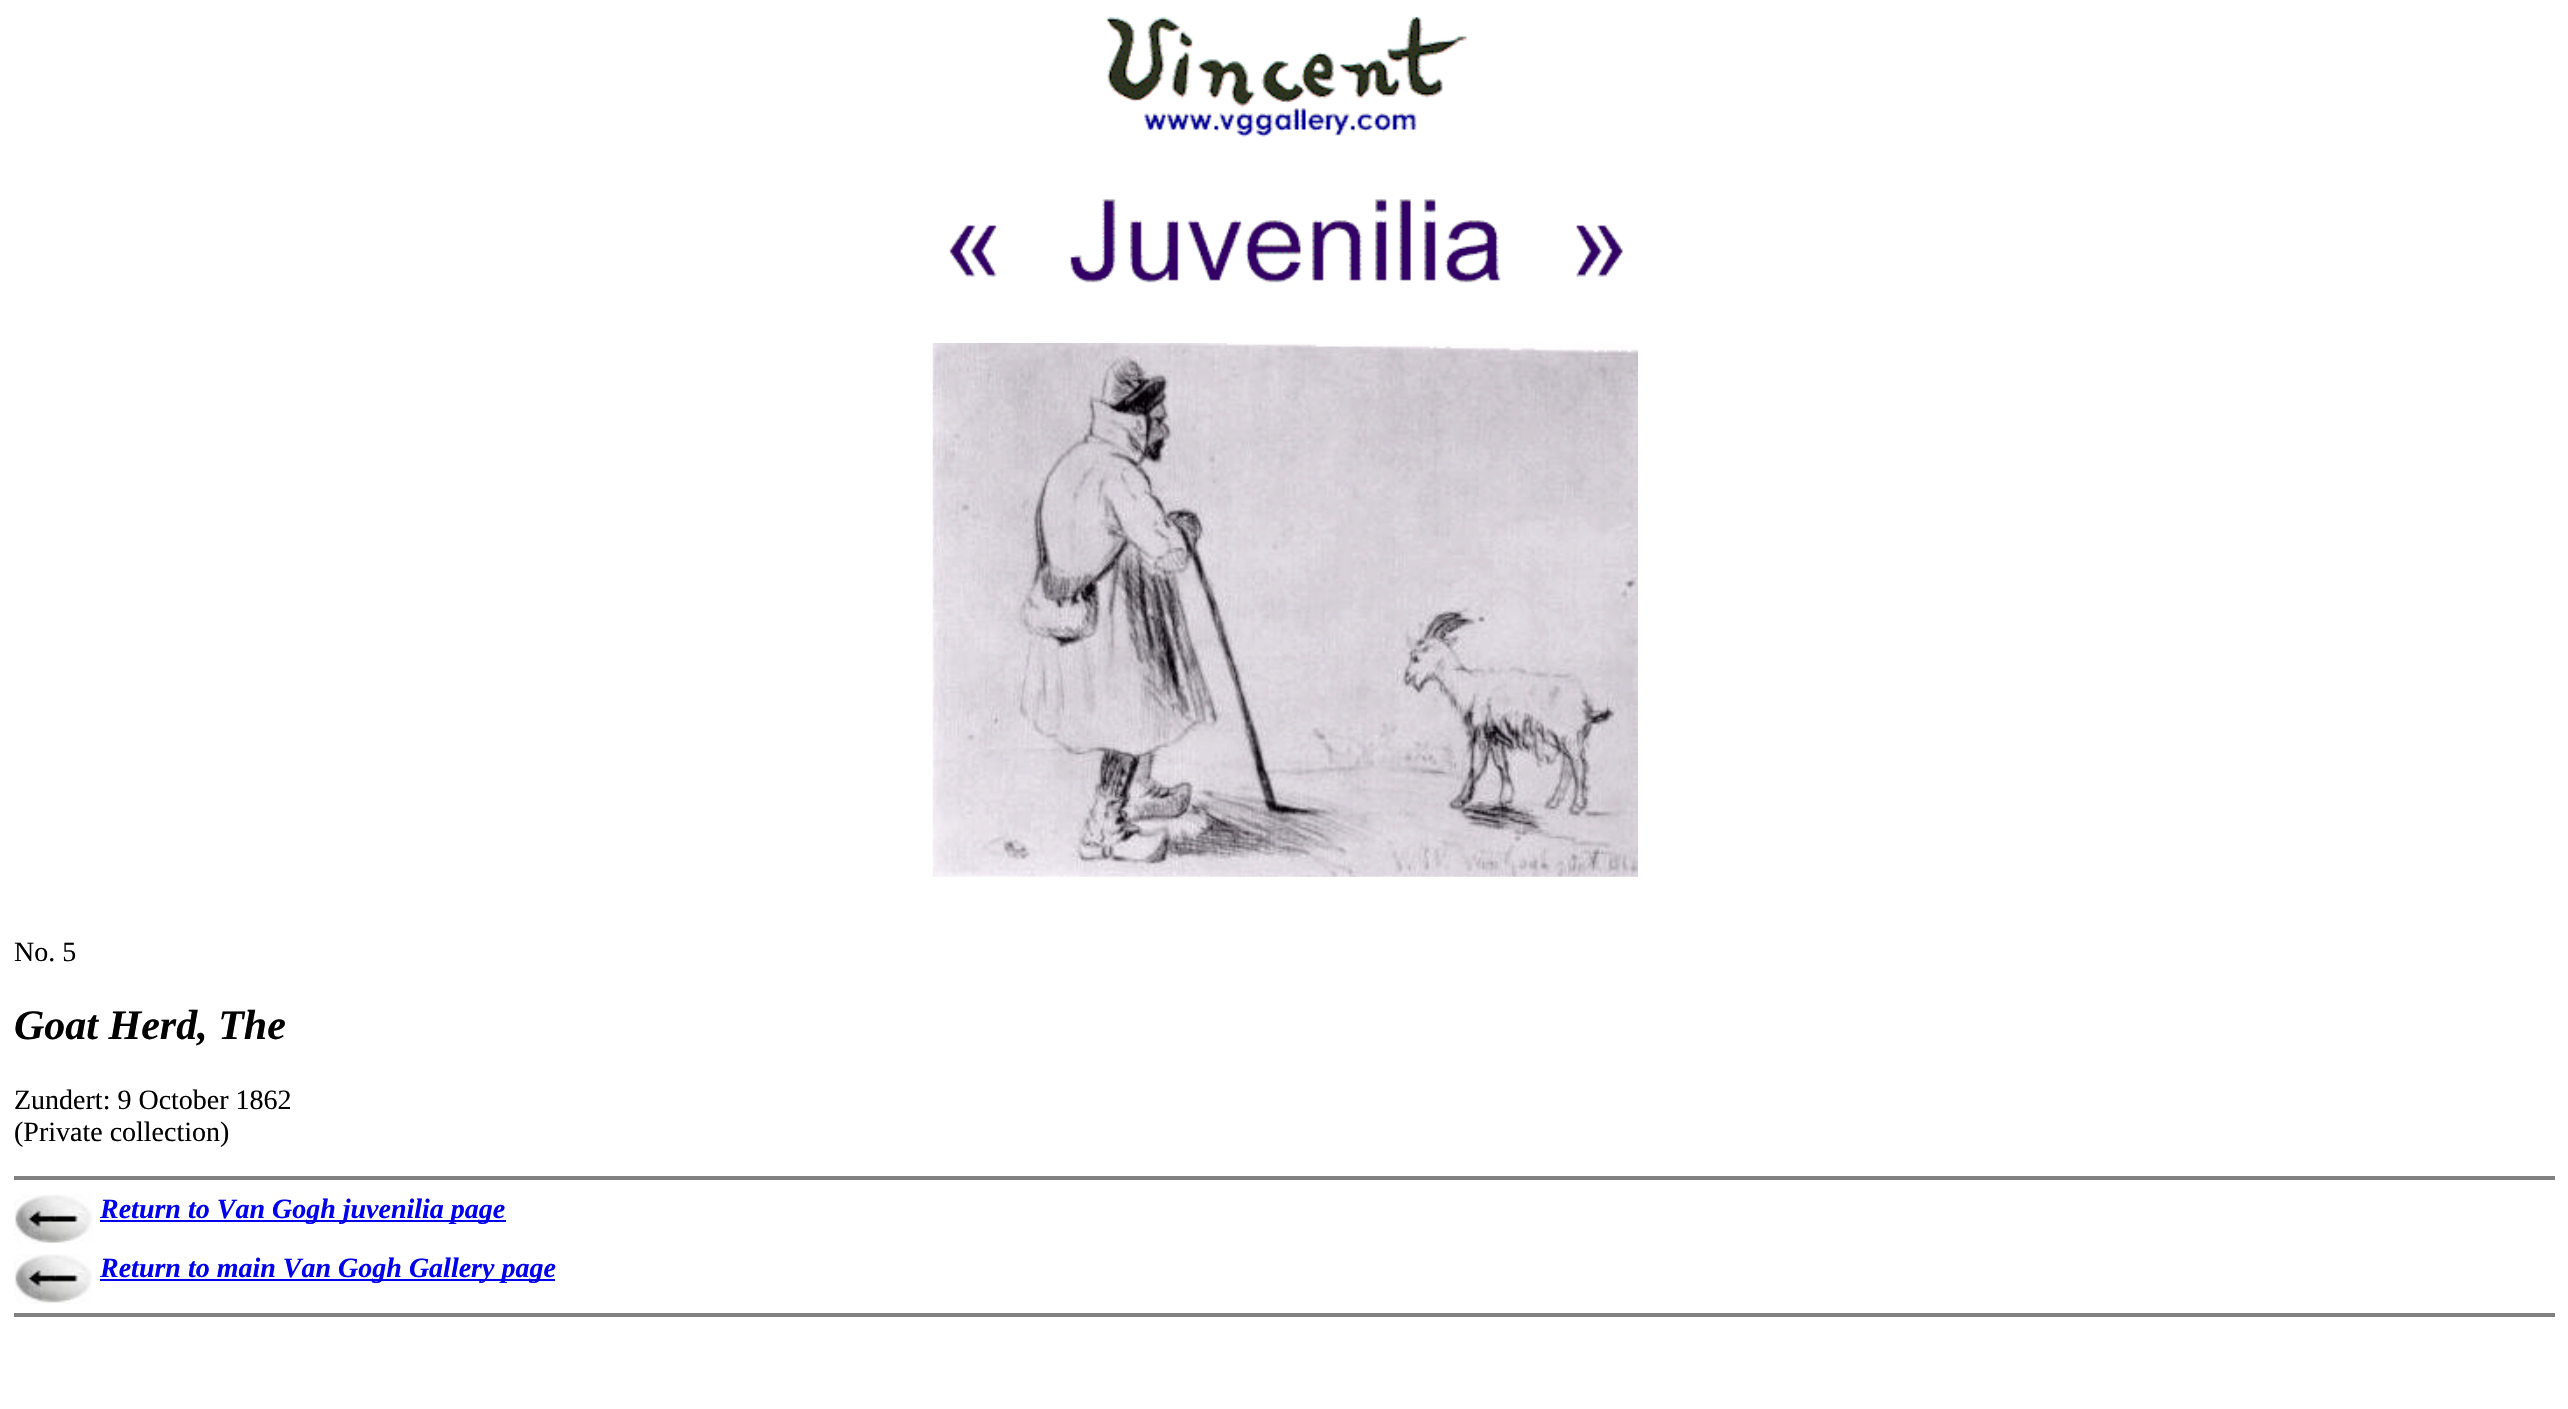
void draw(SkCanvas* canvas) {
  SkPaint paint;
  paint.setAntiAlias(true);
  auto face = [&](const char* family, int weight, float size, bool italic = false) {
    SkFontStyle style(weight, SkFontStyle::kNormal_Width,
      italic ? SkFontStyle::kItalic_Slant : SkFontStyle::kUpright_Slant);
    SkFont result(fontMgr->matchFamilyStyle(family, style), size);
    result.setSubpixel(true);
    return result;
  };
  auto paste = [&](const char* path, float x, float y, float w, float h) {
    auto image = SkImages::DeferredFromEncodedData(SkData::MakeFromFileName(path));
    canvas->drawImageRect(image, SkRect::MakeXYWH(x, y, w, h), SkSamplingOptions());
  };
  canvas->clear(0xffffffff);
  paste("img/1.png", 1105, 15, 362, 122);
  paste("img/2.png", 949, 199, 674, 84);
  paste("img/3.png", 932, 343, 706, 534);
  paint.setColor(0xff808080);
  canvas->drawRect(SkRect::MakeXYWH(14, 1176, 2541, 4), paint);
  paste("img/4.png", 14, 1194, 79, 50);
  paint.setColor(0xff0000ee);
  canvas->drawRect(SkRect::MakeXYWH(100, 1220, 406, 2), paint);
  paste("img/5.png", 14, 1254, 78, 50);
  canvas->drawRect(SkRect::MakeXYWH(100, 1279, 455, 2), paint);
  paint.setColor(0xff808080);
  canvas->drawRect(SkRect::MakeXYWH(14, 1313, 2541, 4), paint);
  auto f0 = face("Liberation Serif", 400, 28);
  paint.setColor(0xff000000);
  canvas->drawString("No. 5", 14, 961, f0, paint);
  auto f1 = face("Liberation Serif", 700, 42, true);
  canvas->drawString("Goat Herd, The", 14, 1039, f1, paint);
  canvas->drawString("Zundert: 9 October 1862", 14, 1109, f0, paint);
  canvas->drawString("(Private collection)", 14, 1141, f0, paint);
  auto f2 = face("Liberation Serif", 700, 28, true);
  paint.setColor(0xff0000ee);
  canvas->drawString("Return to Van Gogh juvenilia page", 100, 1218, f2, paint);
  canvas->drawString("Return to main Van Gogh Gallery page", 100, 1277, f2, paint);
}
